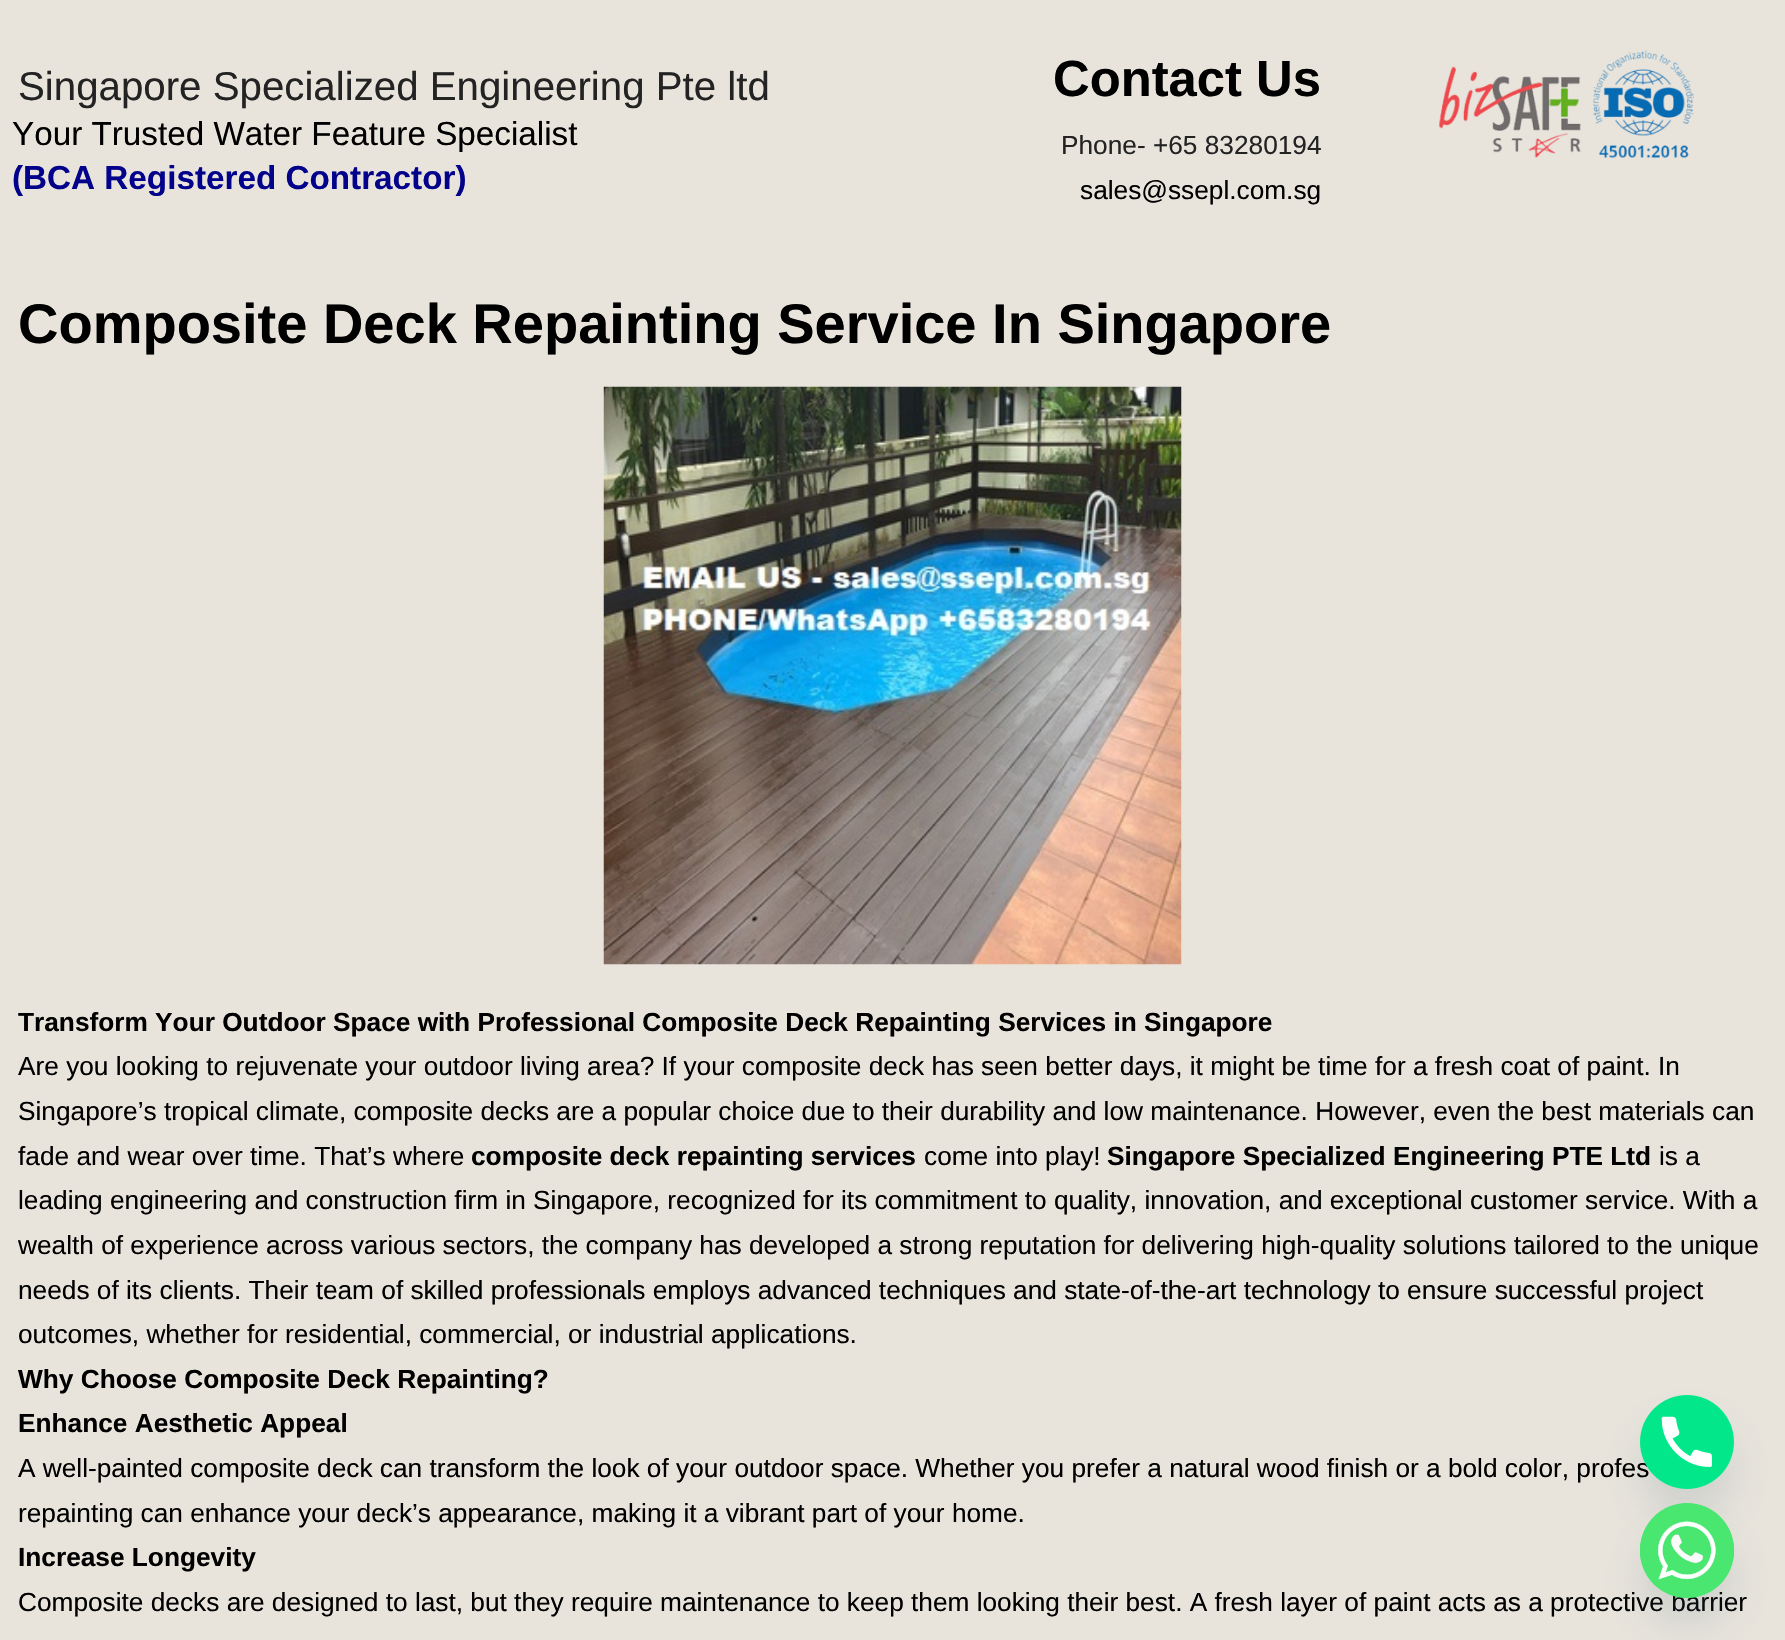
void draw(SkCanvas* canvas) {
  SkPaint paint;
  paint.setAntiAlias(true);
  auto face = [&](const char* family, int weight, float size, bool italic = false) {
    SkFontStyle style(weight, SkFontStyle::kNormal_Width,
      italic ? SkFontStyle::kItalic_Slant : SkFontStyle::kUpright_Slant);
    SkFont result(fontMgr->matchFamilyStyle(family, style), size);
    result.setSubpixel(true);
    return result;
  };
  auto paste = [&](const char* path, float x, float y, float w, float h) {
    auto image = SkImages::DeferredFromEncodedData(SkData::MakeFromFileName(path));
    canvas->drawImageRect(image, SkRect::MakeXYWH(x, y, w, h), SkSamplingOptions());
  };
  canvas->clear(0xffe8e4dc);
  paste("img/1.png", 1439, 50, 255, 108);
  paste("img/2.png", 603, 386, 579, 579);
  paint.setColor(0x2949687e);
  paint.setMaskFilter(SkMaskFilter::MakeBlur(kNormal_SkBlurStyle, 21));
  canvas->drawRoundRect(SkRect::MakeXYWH(1640, 1423, 94, 94), 47, 47, paint);
  paint.setMaskFilter(nullptr);
  auto f0 = face("Liberation Sans", 400, 40.25f);
  paint.setColor(0xff232323);
  canvas->drawString("Singapore Specialized Engineering Pte ltd", 18, 100, f0, paint);
  auto f1 = face("Liberation Sans", 400, 33.25f);
  paint.setColor(0xff000000);
  canvas->drawString("Your Trusted Water Feature Specialist", 12, 145, f1, paint);
  auto f2 = face("Liberation Sans", 700, 33.25f);
  paint.setColor(0xff03028b);
  canvas->drawString("(BCA Registered Contractor)", 12, 189, f2, paint);
  auto f3 = face("Liberation Sans", 700, 50.75f);
  paint.setColor(0xff000000);
  canvas->drawString("Contact Us", 1053, 96, f3, paint);
  auto f4 = face("Liberation Sans", 400, 26.25f);
  paint.setColor(0xff232323);
  canvas->drawString("Phone- +65 83280194", 1061, 154, f4, paint);
  paint.setColor(0xff000000);
  canvas->drawString("sales@ssepl.com.sg", 1080, 199, f4, paint);
  auto f5 = face("Liberation Sans", 700, 56);
  canvas->drawString("Composite Deck Repainting Service In Singapore", 18, 343, f5, paint);
  auto f6 = face("Liberation Sans", 700, 26.25f);
  canvas->drawString("Transform Your Outdoor Space with Professional Composite Deck Repainting Services in Singapore", 18, 1031, f6, paint);
  {
    const struct { const char* s; float x, y; } items[] = {
      {"Are you looking to rejuvenate your outdoor living area? If your composite deck has seen better days, it might be time for a fresh coat of paint. In", 18, 1075},
      {"Singapore’s tropical climate, composite decks are a popular choice due to their durability and low maintenance. However, even the best materials can", 18, 1120},
      {"fade and wear over time. That’s where", 18, 1165},
    };
    for (auto [s, x, y] : items) {
      canvas->drawString(s, x, y, f4, paint);
    }
  }
  canvas->drawString("composite deck repainting services", 471, 1165, f6, paint);
  canvas->drawString("come into play!", 924, 1165, f4, paint);
  canvas->drawString("Singapore Specialized Engineering PTE Ltd", 1107, 1165, f6, paint);
  {
    const struct { const char* s; float x, y; } items[] = {
      {"is a", 1659, 1165},
      {"leading engineering and construction firm in Singapore, recognized for its commitment to quality, innovation, and exceptional customer service. With a", 18, 1209},
      {"wealth of experience across various sectors, the company has developed a strong reputation for delivering high-quality solutions tailored to the unique", 18, 1254},
      {"needs of its clients. Their team of skilled professionals employs advanced techniques and state-of-the-art technology to ensure successful project", 18, 1299},
      {"outcomes, whether for residential, commercial, or industrial applications.", 18, 1343},
    };
    for (auto [s, x, y] : items) {
      canvas->drawString(s, x, y, f4, paint);
    }
  }
  canvas->drawString("Why Choose Composite Deck Repainting?", 18, 1388, f6, paint);
  canvas->drawString("Enhance Aesthetic Appeal", 18, 1432, f6, paint);
  canvas->drawString("A well-painted composite deck can transform the look of your outdoor space. Whether you prefer a natural wood finish or a bold color, profes", 18, 1477, f4, paint);
  canvas->drawString("repainting can enhance your deck’s appearance, making it a vibrant part of your home.", 18, 1522, f4, paint);
  canvas->drawString("Increase Longevity", 18, 1566, f6, paint);
  canvas->drawString("Composite decks are designed to last, but they require maintenance to keep them looking their best. A fresh layer of paint acts as a protective barrier", 18, 1611, f4, paint);
  paste("img/3.png", 1640, 1395, 94, 94);
  paint.setColor(0x2949687e);
  paint.setMaskFilter(SkMaskFilter::MakeBlur(kNormal_SkBlurStyle, 21));
  canvas->drawRoundRect(SkRect::MakeXYWH(1640, 1531, 94, 95), 47, 47, paint);
  paint.setMaskFilter(nullptr);
  paint.setColor(0xff49e670);
  canvas->drawRoundRect(SkRect::MakeXYWH(1640, 1503, 94, 95), 47, 47, paint);
  paste("img/4.png", 1640, 1503, 94, 95);
}
